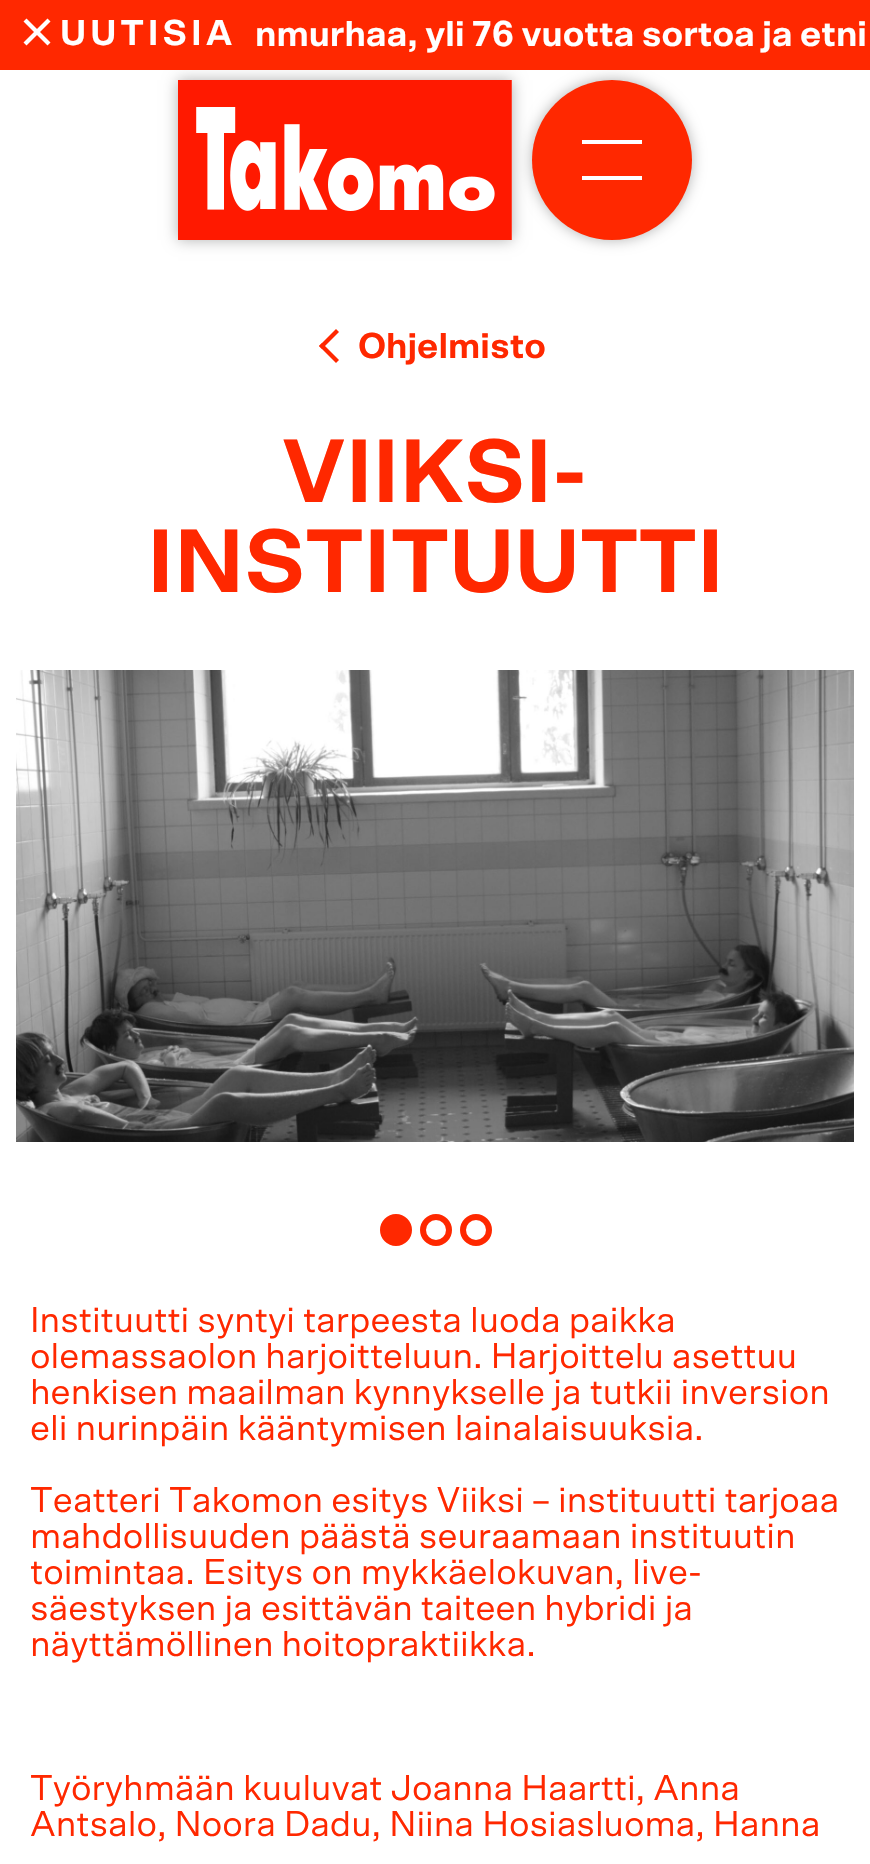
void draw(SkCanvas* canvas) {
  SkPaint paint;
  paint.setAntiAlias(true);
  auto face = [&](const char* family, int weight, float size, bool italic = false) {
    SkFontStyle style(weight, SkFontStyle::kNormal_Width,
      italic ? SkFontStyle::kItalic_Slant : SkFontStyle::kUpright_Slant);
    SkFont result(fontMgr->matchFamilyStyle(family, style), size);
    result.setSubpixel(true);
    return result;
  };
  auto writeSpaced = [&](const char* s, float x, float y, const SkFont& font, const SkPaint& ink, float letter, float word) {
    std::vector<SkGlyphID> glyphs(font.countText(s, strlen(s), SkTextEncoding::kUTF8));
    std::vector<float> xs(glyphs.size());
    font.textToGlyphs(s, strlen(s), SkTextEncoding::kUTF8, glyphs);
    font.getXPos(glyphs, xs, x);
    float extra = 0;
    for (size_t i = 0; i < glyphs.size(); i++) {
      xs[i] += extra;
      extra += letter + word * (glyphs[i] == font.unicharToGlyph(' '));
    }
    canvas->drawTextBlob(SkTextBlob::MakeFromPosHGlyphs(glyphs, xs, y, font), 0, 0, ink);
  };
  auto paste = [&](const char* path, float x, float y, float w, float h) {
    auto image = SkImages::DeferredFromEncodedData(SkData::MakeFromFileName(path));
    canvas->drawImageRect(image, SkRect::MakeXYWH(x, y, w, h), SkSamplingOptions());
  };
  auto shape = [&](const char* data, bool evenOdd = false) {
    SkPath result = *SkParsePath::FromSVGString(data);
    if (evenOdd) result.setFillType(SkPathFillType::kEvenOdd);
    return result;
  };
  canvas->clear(0xffffffff);
  paint.setColor(0x4d000000);
  paint.setMaskFilter(SkMaskFilter::MakeBlur(kNormal_SkBlurStyle, 7));
  canvas->drawRect(SkRect::MakeXYWH(178, 80, 334, 160), paint);
  paint.setMaskFilter(nullptr);
  paste("img/1.png", 178, 80, 334, 160);
  paint.setMaskFilter(SkMaskFilter::MakeBlur(kNormal_SkBlurStyle, 7));
  canvas->drawRoundRect(SkRect::MakeXYWH(532, 80, 160, 160), 80, 80, paint);
  paint.setMaskFilter(nullptr);
  paint.setColor(0xffff2800);
  canvas->drawRect(SkRect::MakeXYWH(0, 0, 870, 70), paint);
  paint.setColor(0xffffffff);
  canvas->drawPath(shape("M26.5 18.5L50.5 42.5L47.5 45.5L23.5 21.5Z"), paint);
  canvas->drawPath(shape("M23.5 42.5L47.5 18.5L50.5 21.5L26.5 45.5Z"), paint);
  paint.setColor(0xffff2800);
  canvas->drawCircle(612, 160, 80, paint);
  paint.setColor(0xffffffff);
  canvas->drawRect(SkRect::MakeXYWH(582, 140, 60, 4), paint);
  canvas->drawRect(SkRect::MakeXYWH(582, 176, 60, 4), paint);
  paint.setColor(0xffff2800);
  canvas->drawPath(shape("M339 360L336 363L319 346L322 343Z"), paint);
  canvas->drawPath(shape("M339 332L322 349L319 346L336 329Z"), paint);
  paste("img/2.png", 16, 670, 838, 472);
  canvas->drawCircle(396, 1230, 13, paint);
  paint.setStroke(true);
  paint.setStrokeWidth(6);
  canvas->drawCircle(396, 1230, 13, paint);
  canvas->drawCircle(436, 1230, 13, paint);
  canvas->drawCircle(476, 1230, 13, paint);
  auto f0 = face("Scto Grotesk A", 700, 36);
  paint.setStroke(false);
  paint.setColor(0xffffffff);
  writeSpaced("UUTISIA", 60, 45, f0, paint, 4, 0);
  canvas->drawString("nmurhaa, yli 76 vuotta sortoa ja etni", 255, 46, f0, paint);
  paint.setColor(0xffff2800);
  canvas->drawString("Ohjelmisto", 358, 358, f0, paint);
  auto f1 = face("Scto Grotesk A", 700, 90);
  canvas->drawString("VIIKSI-", 282, 502, f1, paint);
  canvas->drawString("INSTITUUTTI", 147, 592, f1, paint);
  auto f2 = face("Scto Grotesk A", 400, 36);
  {
    const struct { const char* s; float x, y; } items[] = {
      {"Instituutti syntyi tarpeesta luoda paikka", 30, 1332},
      {"olemassaolon harjoitteluun. Harjoittelu asettuu", 30, 1368},
      {"henkisen maailman kynnykselle ja tutkii inversion", 30, 1404},
      {"eli nurinpäin kääntymisen lainalaisuuksia.", 30, 1440},
      {"Teatteri Takomon esitys Viiksi – instituutti tarjoaa", 30, 1512},
      {"mahdollisuuden päästä seuraamaan instituutin", 30, 1548},
      {"toimintaa. Esitys on mykkäelokuvan, live-", 30, 1584},
      {"säestyksen ja esittävän taiteen hybridi ja", 30, 1620},
      {"näyttämöllinen hoitopraktiikka.", 30, 1656},
      {"Työryhmään kuuluvat Joanna Haartti, Anna", 30, 1800},
      {"Antsalo, Noora Dadu, Niina Hosiasluoma, Hanna", 30, 1836},
    };
    for (auto [s, x, y] : items) {
      canvas->drawString(s, x, y, f2, paint);
    }
  }
}
